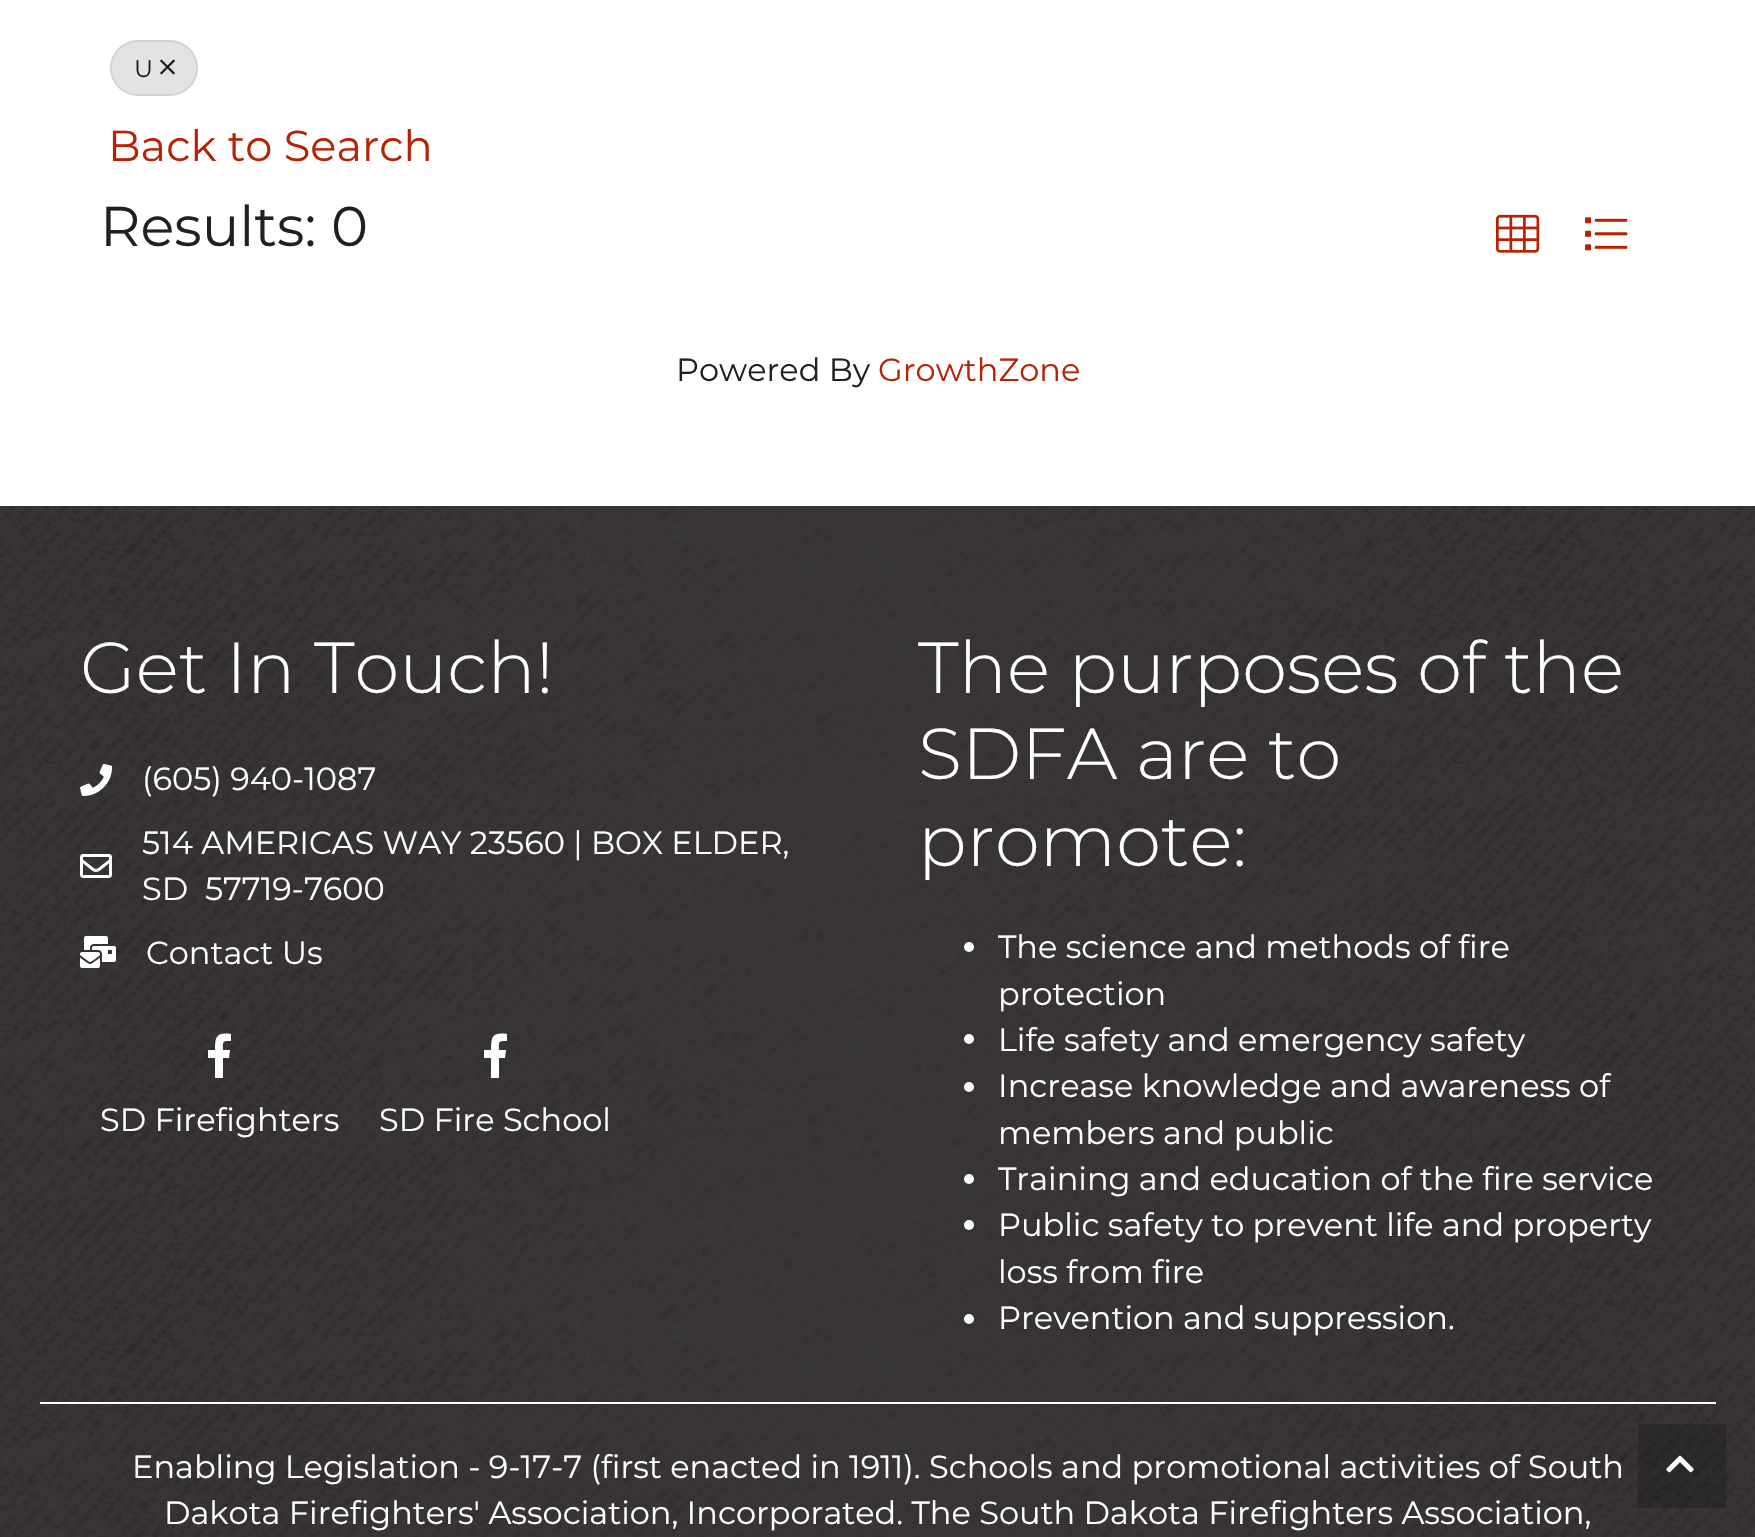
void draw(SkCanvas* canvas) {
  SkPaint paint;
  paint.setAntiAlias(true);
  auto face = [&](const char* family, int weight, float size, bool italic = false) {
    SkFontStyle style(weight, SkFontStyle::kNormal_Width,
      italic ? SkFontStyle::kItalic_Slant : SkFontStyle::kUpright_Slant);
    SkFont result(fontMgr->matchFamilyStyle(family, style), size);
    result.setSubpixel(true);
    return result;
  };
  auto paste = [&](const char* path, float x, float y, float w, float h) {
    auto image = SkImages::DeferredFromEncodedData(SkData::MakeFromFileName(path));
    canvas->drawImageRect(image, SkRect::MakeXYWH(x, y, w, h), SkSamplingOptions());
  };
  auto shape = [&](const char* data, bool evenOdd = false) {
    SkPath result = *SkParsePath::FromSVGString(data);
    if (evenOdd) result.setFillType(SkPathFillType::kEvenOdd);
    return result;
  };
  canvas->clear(0xffffffff);
  paint.setColor(0xffe3e3e3);
  canvas->drawRoundRect(SkRect::MakeXYWH(110, 40, 88, 56), 28, 28, paint);
  paint.setStroke(true);
  paint.setStrokeWidth(2);
  paint.setColor(0x12000000);
  canvas->drawRoundRect(SkRect::MakeXYWH(111, 41, 86, 54), 27, 27, paint);
  paste("img/1.png", 160, 59, 15, 16);
  paste("img/2.png", 1496, 214, 44, 39);
  paste("img/3.png", 1585, 217, 43, 34);
  paste("img/4.png", 0, 506, 1755, 1031);
  paste("img/5.png", 80, 764, 33, 32);
  paste("img/6.png", 80, 854, 32, 24);
  paste("img/7.png", 80, 936, 36, 32);
  paint.setStroke(false);
  paint.setColor(0xffffffff);
  canvas->drawPath(shape("M215 1078V1058H208V1050H215C215 1037 216 1032 231 1034V1041C222 1041 223 1041 223 1050H230L229 1058H223V1078Z"), paint);
  canvas->drawPath(shape("M491 1078V1058H484V1050H491C491 1037 492 1032 507 1034V1041C498 1041 499 1041 499 1050H506L505 1058H499V1078Z"), paint);
  canvas->drawCircle(969, 947, 5, paint);
  canvas->drawCircle(969, 1039, 5, paint);
  canvas->drawCircle(969, 1087, 5, paint);
  canvas->drawCircle(969, 1179, 5, paint);
  canvas->drawCircle(969, 1225, 5, paint);
  canvas->drawCircle(969, 1319, 5, paint);
  canvas->drawRect(SkRect::MakeXYWH(40, 1402, 1676, 2), paint);
  paint.setColor(0x33000000);
  canvas->drawRect(SkRect::MakeXYWH(1638, 1424, 88, 84), paint);
  paste("img/8.png", 1666, 1455, 28, 18);
  auto f0 = face("Montserrat", 400, 24);
  paint.setColor(0xff231f20);
  canvas->drawString("U", 134, 77, f0, paint);
  auto f1 = face("Montserrat", 400, 43.25f);
  paint.setColor(0xffb62203);
  canvas->drawString("Back to Search", 108, 161, f1, paint);
  auto f2 = face("Montserrat", 400, 56);
  paint.setColor(0xff231f20);
  canvas->drawString("Results: 0", 100, 246, f2, paint);
  auto f3 = face("Montserrat", 400, 32);
  canvas->drawString("Powered By", 676, 381, f3, paint);
  paint.setColor(0xffb62203);
  canvas->drawString("GrowthZone", 878, 381, f3, paint);
  auto f4 = face("Montserrat", 300, 72);
  paint.setColor(0xffffffff);
  canvas->drawString("Get In Touch!", 80, 693, f4, paint);
  {
    const struct { const char* s; float x, y; } items[] = {
      {"(605) 940-1087", 142, 790},
      {"514 AMERICAS WAY 23560 | BOX ELDER,", 142, 854},
      {"SD  57719-7600", 142, 900},
      {"Contact Us", 146, 964},
      {"SD Firefighters", 100, 1131},
      {"SD Fire School", 379, 1131},
    };
    for (auto [s, x, y] : items) {
      canvas->drawString(s, x, y, f3, paint);
    }
  }
  {
    const struct { const char* s; float x, y; } items[] = {
      {"The purposes of the", 918, 693},
      {"SDFA are to", 918, 779},
      {"promote:", 918, 866},
    };
    for (auto [s, x, y] : items) {
      canvas->drawString(s, x, y, f4, paint);
    }
  }
  {
    const struct { const char* s; float x, y; } items[] = {
      {"The science and methods of fire", 998, 958},
      {"protection", 998, 1005},
      {"Life safety and emergency safety", 998, 1051},
      {"Increase knowledge and awareness of", 998, 1097},
      {"members and public", 998, 1144},
      {"Training and education of the fire service", 998, 1190},
      {"Public safety to prevent life and property", 998, 1236},
      {"loss from fire", 998, 1283},
      {"Prevention and suppression.", 998, 1329},
      {"Enabling Legislation - 9-17-7 (first enacted in 1911). Schools and promotional activities of South", 132, 1478},
      {"Dakota Firefighters' Association, Incorporated. The South Dakota Firefighters Association,", 164, 1524},
    };
    for (auto [s, x, y] : items) {
      canvas->drawString(s, x, y, f3, paint);
    }
  }
}
